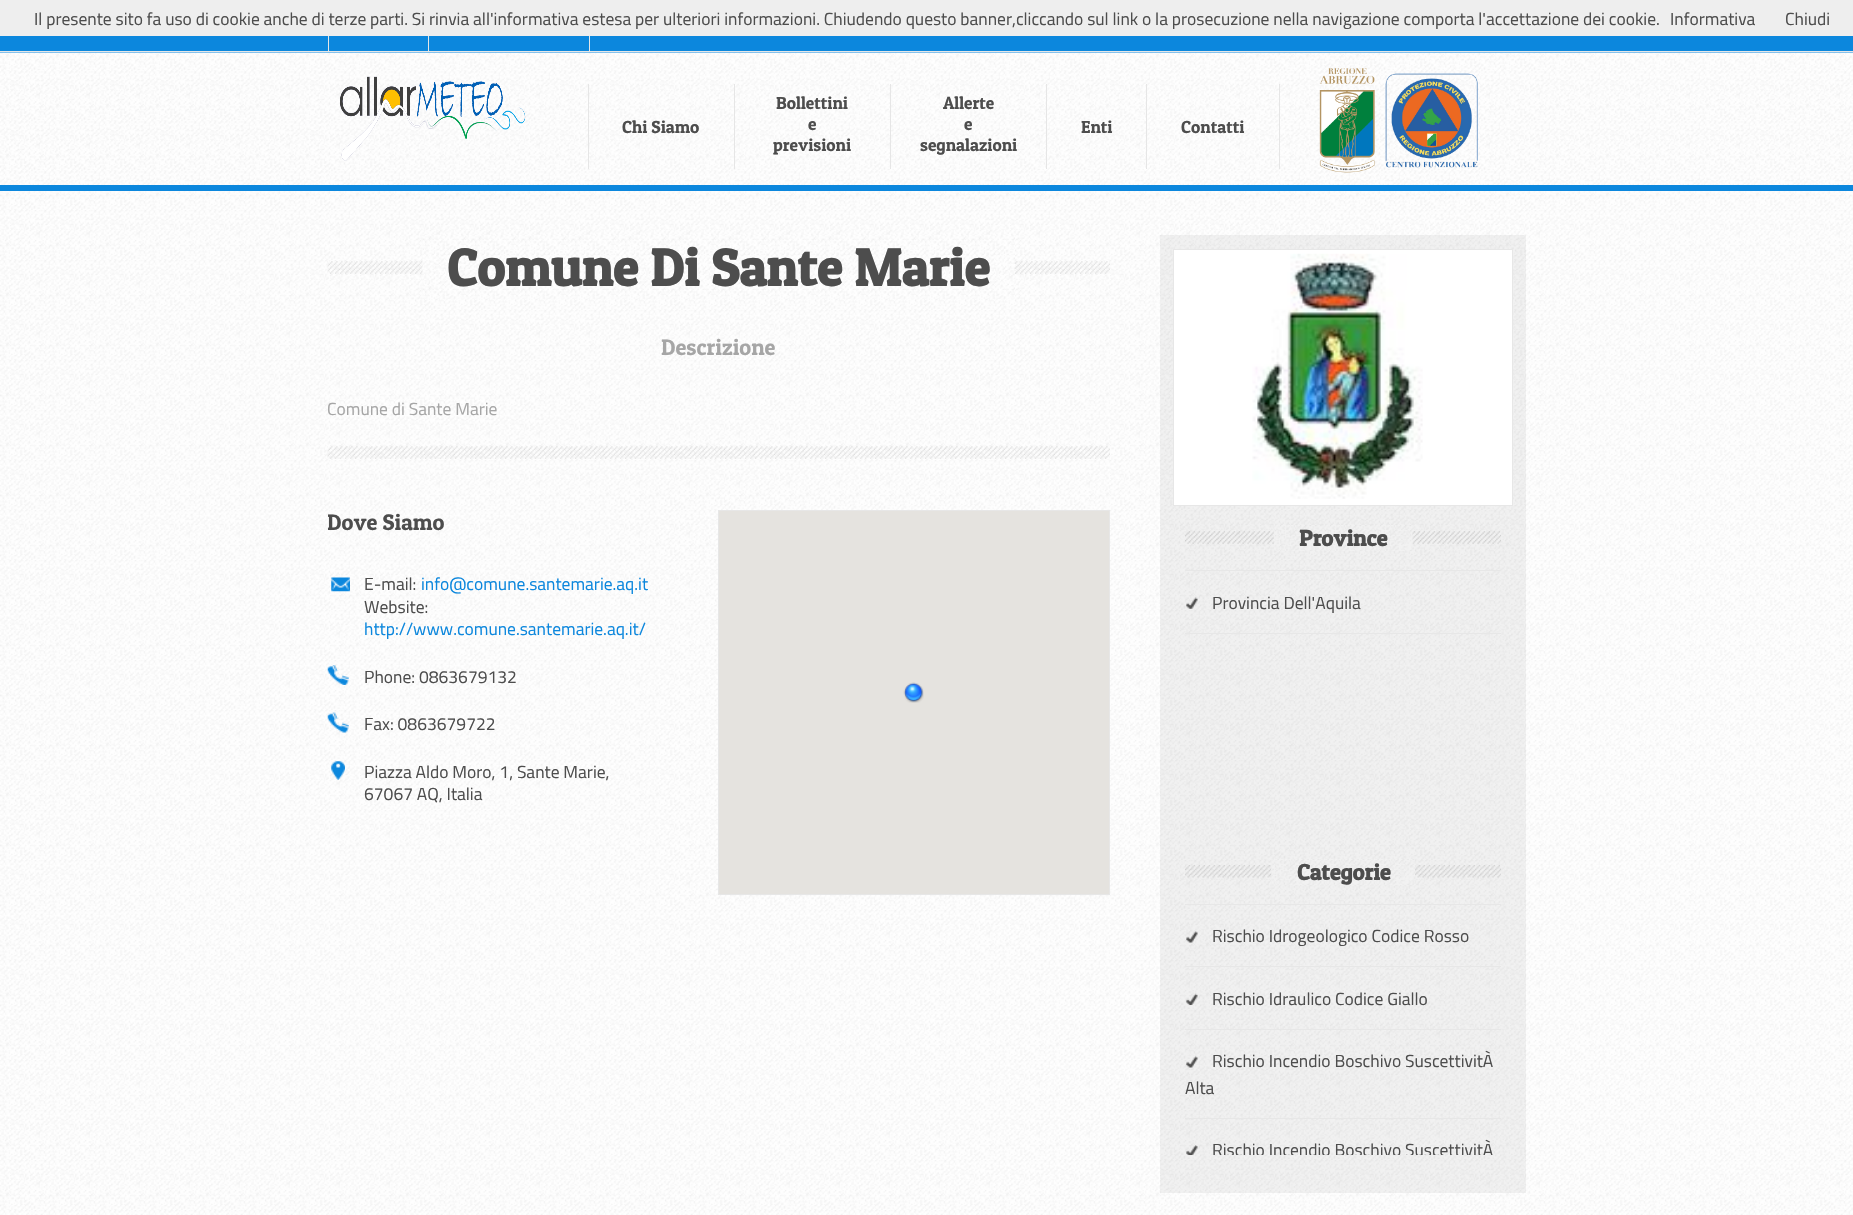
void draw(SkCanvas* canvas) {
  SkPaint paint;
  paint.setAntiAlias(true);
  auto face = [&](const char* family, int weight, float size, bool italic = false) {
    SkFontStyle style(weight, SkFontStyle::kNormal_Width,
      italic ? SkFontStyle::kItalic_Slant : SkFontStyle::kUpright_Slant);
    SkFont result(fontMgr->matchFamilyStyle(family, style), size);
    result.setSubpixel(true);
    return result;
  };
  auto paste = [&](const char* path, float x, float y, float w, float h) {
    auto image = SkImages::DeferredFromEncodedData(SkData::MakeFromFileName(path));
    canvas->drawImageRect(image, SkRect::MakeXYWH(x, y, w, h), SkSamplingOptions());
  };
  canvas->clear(0xffffffff);
  {
    const struct { float x, y, w, h; SkColor color; } items[] = {
      {0, 0, 1853, 36, 0xffeeeeee},
      {0, 36, 1853, 17, 0xff0c87dd},
      {0, 51, 1853, 1, 0xffe6e6e6},
      {328, 36, 1, 15, 0xffe6e6e6},
      {589, 36, 1, 15, 0xffe6e6e6},
      {428, 36, 1, 15, 0xffe6e6e6},
    };
    for (auto [x, y, w, h, color] : items) {
      paint.setColor(color);
      canvas->drawRect(SkRect::MakeXYWH(x, y, w, h), paint);
    }
  }
  paste("img/1.png", 0, 52, 1853, 133);
  paint.setColor(0xff0c87dd);
  canvas->drawRect(SkRect::MakeXYWH(0, 185, 1853, 6), paint);
  paste("img/2.png", 340, 76, 186, 85);
  {
    const struct { float x, y, w, h; SkColor color; } items[] = {
      {734, 84, 1, 85, 0xffe6e6e6},
      {588, 84, 1, 85, 0xffe6e6e6},
      {890, 84, 1, 85, 0xffe6e6e6},
      {1046, 84, 1, 85, 0xffe6e6e6},
      {1146, 84, 1, 85, 0xffe6e6e6},
      {1279, 84, 1, 85, 0xffe6e6e6},
    };
    for (auto [x, y, w, h, color] : items) {
      paint.setColor(color);
      canvas->drawRect(SkRect::MakeXYWH(x, y, w, h), paint);
    }
  }
  paste("img/3.png", 1319, 68, 159, 105);
  paste("img/4.png", 0, 191, 1853, 1024);
  paste("img/5.png", 327, 261, 783, 13);
  paste("img/6.png", 422, 235, 593, 64);
  paste("img/7.png", 327, 446, 783, 13);
  paint.setStroke(true);
  paint.setStrokeWidth(1);
  paint.setColor(0xffe7e7e7);
  canvas->drawRect(SkRect::MakeXYWH(718.5f, 510.5f, 391, 384), paint);
  paint.setStroke(false);
  paint.setColor(0xffe5e3df);
  canvas->drawRect(SkRect::MakeXYWH(719, 511, 390, 383), paint);
  paste("img/8.png", 903, 682, 21, 21);
  paste("img/9.png", 331, 577, 19, 15);
  paste("img/10.png", 327, 665, 22, 20);
  paste("img/11.png", 327, 712, 22, 21);
  paste("img/12.png", 331, 761, 14, 19);
  paint.setColor(0x124d4d4d);
  canvas->drawRect(SkRect::MakeXYWH(1160, 235, 366, 958), paint);
  paint.setColor(0xffffffff);
  canvas->drawRect(SkRect::MakeXYWH(1173.5f, 249.5f, 339, 256), paint);
  paint.setStroke(true);
  paint.setColor(0xffe7e7e7);
  canvas->drawRect(SkRect::MakeXYWH(1173.5f, 249.5f, 339, 256), paint);
  paste("img/13.png", 1252, 253, 171, 246);
  paste("img/14.png", 1185, 531, 316, 13);
  paste("img/15.png", 1273, 525, 140, 26);
  paint.setStroke(false);
  canvas->drawRect(SkRect::MakeXYWH(1185, 570, 316, 1), paint);
  canvas->drawRect(SkRect::MakeXYWH(1185, 633, 316, 1), paint);
  paste("img/16.png", 1186, 597, 12, 12);
  paste("img/17.png", 1185, 865, 316, 13);
  paste("img/18.png", 1271, 859, 144, 26);
  canvas->drawRect(SkRect::MakeXYWH(1185, 904, 316, 1), paint);
  canvas->drawRect(SkRect::MakeXYWH(1185, 966, 316, 1), paint);
  paste("img/19.png", 1186, 931, 12, 12);
  canvas->drawRect(SkRect::MakeXYWH(1185, 1029, 316, 1), paint);
  paste("img/20.png", 1186, 993, 12, 12);
  canvas->drawRect(SkRect::MakeXYWH(1185, 1118, 316, 1), paint);
  paste("img/21.png", 1186, 1056, 12, 12);
  paste("img/22.png", 1186, 1145, 12, 10);
  auto f0 = face("Titillium Web", 400, 17.5f);
  paint.setColor(0xff4d4d4d);
  {
    const struct { const char* s; float x, y; } items[] = {
      {"Il presente sito fa uso di cookie anche di terze parti. Si rinvia all'informativa estesa per ulteriori informazioni. Chiudendo questo banner,cliccando sul link o la prosecuzione nella navigazione comporta l'accettazione dei cookie.", 34, 25},
      {"Informativa", 1670, 25},
      {"Chiudi", 1785, 25},
    };
    for (auto [s, x, y] : items) {
      canvas->drawString(s, x, y, f0, paint);
    }
  }
  auto f1 = face("Patua One", 400, 17.5f);
  {
    const struct { const char* s; float x, y; } items[] = {
      {"Chi Siamo", 622, 133},
      {"Bollettini", 776, 109},
      {"e", 808, 130},
      {"previsioni", 773, 151},
      {"Allerte", 943, 109},
      {"e", 964, 130},
      {"segnalazioni", 920, 151},
      {"Enti", 1081, 133},
      {"Contatti", 1181, 133},
    };
    for (auto [s, x, y] : items) {
      canvas->drawString(s, x, y, f1, paint);
    }
  }
  auto f2 = face("Patua One", 700, 52.5f);
  canvas->drawString("Comune Di Sante Marie", 447, 286, f2, paint);
  auto f3 = face("Patua One", 400, 22.5f);
  paint.setColor(0xffa6a6a6);
  canvas->drawString("Descrizione", 661, 355, f3, paint);
  canvas->drawString("Comune di Sante Marie", 327, 415, f0, paint);
  canvas->save();
  canvas->clipRect(SkRect::MakeXYWH(328, 509, 782, 436));
  paint.setColor(0xff4d4d4d);
  canvas->drawString("Dove Siamo", 327, 530, f3, paint);
  canvas->restore();
  canvas->drawString("E-mail:", 364, 590, f0, paint);
  paint.setColor(0xff0c87dd);
  canvas->drawString("info@comune.santemarie.aq.it", 421, 590, f0, paint);
  paint.setColor(0xff4d4d4d);
  canvas->drawString("Website:", 364, 613, f0, paint);
  paint.setColor(0xff0c87dd);
  canvas->drawString("http://www.comune.santemarie.aq.it/", 364, 635, f0, paint);
  paint.setColor(0xff4d4d4d);
  {
    const struct { const char* s; float x, y; } items[] = {
      {"Phone: 0863679132", 364, 683},
      {"Fax: 0863679722", 364, 730},
      {"Piazza Aldo Moro, 1, Sante Marie,", 364, 778},
      {"67067 AQ, Italia", 364, 800},
    };
    for (auto [s, x, y] : items) {
      canvas->drawString(s, x, y, f0, paint);
    }
  }
  auto f4 = face("Patua One", 700, 22.5f);
  canvas->drawString("Province", 1299, 546, f4, paint);
  canvas->drawString("Provincia Dell'Aquila", 1212, 609, f0, paint);
  canvas->drawString("Categorie", 1297, 880, f4, paint);
  {
    const struct { const char* s; float x, y; } items[] = {
      {"Rischio Idrogeologico Codice Rosso", 1212, 942},
      {"Rischio Idraulico Codice Giallo", 1212, 1005},
      {"Rischio Incendio Boschivo SuscettivitÀ", 1212, 1067},
      {"Alta", 1185, 1094},
    };
    for (auto [s, x, y] : items) {
      canvas->drawString(s, x, y, f0, paint);
    }
  }
  canvas->save();
  canvas->clipRect(SkRect::MakeXYWH(1185, 905, 316, 250));
  canvas->drawString("Rischio Incendio Boschivo SuscettivitÀ", 1212, 1156, f0, paint);
  canvas->restore();
}
